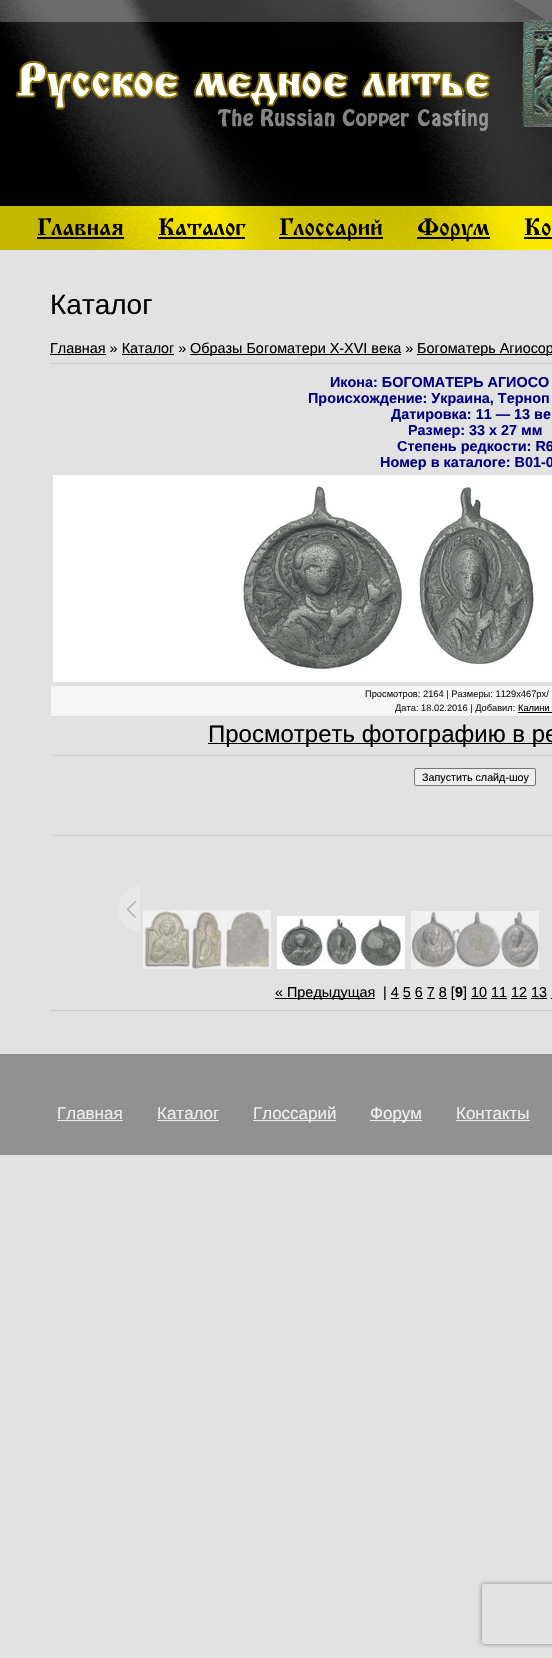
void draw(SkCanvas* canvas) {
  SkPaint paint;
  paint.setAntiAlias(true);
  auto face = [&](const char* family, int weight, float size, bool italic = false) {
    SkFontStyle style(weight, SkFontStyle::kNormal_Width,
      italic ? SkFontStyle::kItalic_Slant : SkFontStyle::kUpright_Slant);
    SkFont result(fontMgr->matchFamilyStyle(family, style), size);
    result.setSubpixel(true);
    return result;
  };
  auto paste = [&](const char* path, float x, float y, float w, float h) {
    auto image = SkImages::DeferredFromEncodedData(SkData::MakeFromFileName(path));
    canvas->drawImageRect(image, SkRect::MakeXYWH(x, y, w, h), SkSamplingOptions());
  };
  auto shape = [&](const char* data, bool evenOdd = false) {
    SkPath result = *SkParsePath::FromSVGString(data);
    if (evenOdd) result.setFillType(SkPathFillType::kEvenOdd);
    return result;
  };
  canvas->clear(0xffe2e2e2);
  paste("img/1.png", 0, 0, 552, 250);
  {
    const struct { float x, y, w, h; SkColor color; } items[] = {
      {37, 237, 87, 2, 0xff000000},
      {158, 237, 87, 2, 0xff000000},
      {279, 237, 104, 2, 0xff000000},
      {417, 237, 73, 2, 0xff000000},
      {524, 237, 28, 2, 0xff000000},
      {50, 354, 56, 1, 0xff000000},
      {190, 354, 211, 1, 0xff000000},
      {417, 354, 135, 1, 0xff000000},
      {122, 354, 52, 1, 0xff000000},
      {50, 363, 502, 1, 0xffcccccc},
      {53, 475, 499, 207, 0xffffffff},
    };
    for (auto [x, y, w, h, color] : items) {
      paint.setColor(color);
      canvas->drawRect(SkRect::MakeXYWH(x, y, w, h), paint);
    }
  }
  paste("img/2.png", 241, 483, 295, 189);
  {
    const struct { float x, y, w, h; SkColor color; } items[] = {
      {51, 686, 501, 30, 0xfff6f6f6},
      {51, 685, 501, 1, 0xffdddddd},
      {51, 716, 501, 1, 0xffdddddd},
      {518, 712, 34, 1, 0xff000000},
      {208, 743, 344, 1, 0xff000000},
      {53, 755, 499, 1, 0xffcccccc},
    };
    for (auto [x, y, w, h, color] : items) {
      paint.setColor(color);
      canvas->drawRect(SkRect::MakeXYWH(x, y, w, h), paint);
    }
  }
  paint.setColor(0xffefefef);
  canvas->drawRoundRect(SkRect::MakeXYWH(414.5f, 768.5f, 121, 17), 1.5f, 1.5f, paint);
  paint.setStroke(true);
  paint.setStrokeWidth(1);
  paint.setColor(0xff767676);
  canvas->drawRoundRect(SkRect::MakeXYWH(414.5f, 768.5f, 121, 17), 1.5f, 1.5f, paint);
  paint.setStroke(false);
  paint.setColor(0xffcccccc);
  canvas->drawRect(SkRect::MakeXYWH(53, 835, 499, 1), paint);
  paste("img/3.png", 118, 886, 22, 46);
  paste("img/4.png", 143, 910, 128, 59);
  paste("img/5.png", 277, 916, 128, 53);
  paste("img/6.png", 411, 911, 128, 58);
  {
    const struct { float x, y, w, h; SkColor color; } items[] = {
      {275, 998, 100, 1, 0xff000000},
      {391, 998, 8, 1, 0xff000000},
      {403, 998, 8, 1, 0xff000000},
      {415, 998, 8, 1, 0xff000000},
      {427, 998, 8, 1, 0xff000000},
      {439, 998, 8, 1, 0xff000000},
      {471, 998, 16, 1, 0xff000000},
      {491, 998, 16, 1, 0xff000000},
      {511, 998, 16, 1, 0xff000000},
      {531, 998, 16, 1, 0xff000000},
      {551, 998, 1, 1, 0xff000000},
      {50, 1010, 502, 1, 0xffcccccc},
      {0, 1054, 552, 101, 0xff919191},
      {57, 1120, 66, 1, 0xffeeeeee},
      {157, 1120, 62, 1, 0xffeeeeee},
      {253, 1120, 83, 1, 0xffeeeeee},
      {370, 1120, 52, 1, 0xffeeeeee},
      {456, 1120, 74, 1, 0xffeeeeee},
    };
    for (auto [x, y, w, h, color] : items) {
      paint.setColor(color);
      canvas->drawRect(SkRect::MakeXYWH(x, y, w, h), paint);
    }
  }
  canvas->save();
  canvas->clipPath(shape("M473 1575H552V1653H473ZM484 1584H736C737 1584 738 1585 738 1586V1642C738 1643 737 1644 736 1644H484C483 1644 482 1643 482 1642V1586C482 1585 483 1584 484 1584Z", true), true);
  paint.setColor(0xff808080);
  paint.setMaskFilter(SkMaskFilter::MakeBlur(kNormal_SkBlurStyle, 2.5f));
  canvas->drawRoundRect(SkRect::MakeXYWH(482, 1584, 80, 60), 2, 2, paint);
  paint.setMaskFilter(nullptr);
  canvas->restore();
  auto f0 = face("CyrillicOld", 700, 25);
  paint.setColor(0xff000000);
  {
    const struct { const char* s; float x, y; } items[] = {
      {"Главная", 37, 235},
      {"Каталог", 158, 235},
      {"Глоссарий", 279, 235},
      {"Форум", 417, 235},
      {"Ко", 524, 235},
    };
    for (auto [s, x, y] : items) {
      canvas->drawString(s, x, y, f0, paint);
    }
  }
  auto f1 = face("Liberation Sans", 400, 28);
  canvas->drawString("Каталог", 50, 314, f1, paint);
  auto f2 = face("Liberation Sans", 400, 14.4f);
  {
    const struct { const char* s; float x, y; } items[] = {
      {"Главная » Каталог »", 50, 353},
      {"Образы Богоматери X-XVI века »", 190, 353},
      {"Богоматерь Агиосор", 417, 353},
    };
    for (auto [s, x, y] : items) {
      canvas->drawString(s, x, y, f2, paint);
    }
  }
  auto f3 = face("Liberation Sans", 700, 14.4f);
  paint.setColor(0xff000080);
  {
    const struct { const char* s; float x, y; } items[] = {
      {"Икона: БОГОМАТЕРЬ АГИОСО", 330, 387},
      {"Происхождение: Украина, Терноп", 308, 403},
      {"Датировка: 11 — 13 ве", 391, 419},
      {"Размер: 33 х 27 мм", 408, 435},
      {"Степень редкости: R6", 397, 451},
      {"Номер в каталоге: B01-0", 380, 467},
    };
    for (auto [s, x, y] : items) {
      canvas->drawString(s, x, y, f3, paint);
    }
  }
  auto f4 = face("Liberation Sans", 400, 9.3f);
  paint.setColor(0xff1a1a1a);
  canvas->drawString("Просмотров: 2164 | Размеры: 1129x467px/", 365, 697, f4, paint);
  canvas->drawString("Дата: 18.02.2016 | Добавил:", 395, 711, f4, paint);
  paint.setColor(0xff000000);
  canvas->drawString("Калини", 518, 711, f4, paint);
  auto f5 = face("Liberation Sans", 400, 24);
  canvas->drawString("Просмотреть фотографию в ре", 208, 742, f5, paint);
  auto f6 = face("Liberation Sans", 400, 10.75f);
  canvas->drawString("Запустить слайд-шоу", 422, 781, f6, paint);
  canvas->drawString("« Предыдущая", 275, 997, f2, paint);
  canvas->drawString("| 4 5 6 7 8 [", 383, 997, f2, paint);
  canvas->drawString("9", 455, 997, f3, paint);
  canvas->drawString("] 10 11 12 13", 463, 997, f2, paint);
  auto f7 = face("Liberation Sans", 400, 17);
  paint.setColor(0xffeeeeee);
  {
    const struct { const char* s; float x, y; } items[] = {
      {"Главная", 57, 1119},
      {"Каталог", 157, 1119},
      {"Глоссарий", 253, 1119},
      {"Форум", 370, 1119},
      {"Контакты", 456, 1119},
    };
    for (auto [s, x, y] : items) {
      canvas->drawString(s, x, y, f7, paint);
    }
  }
}
